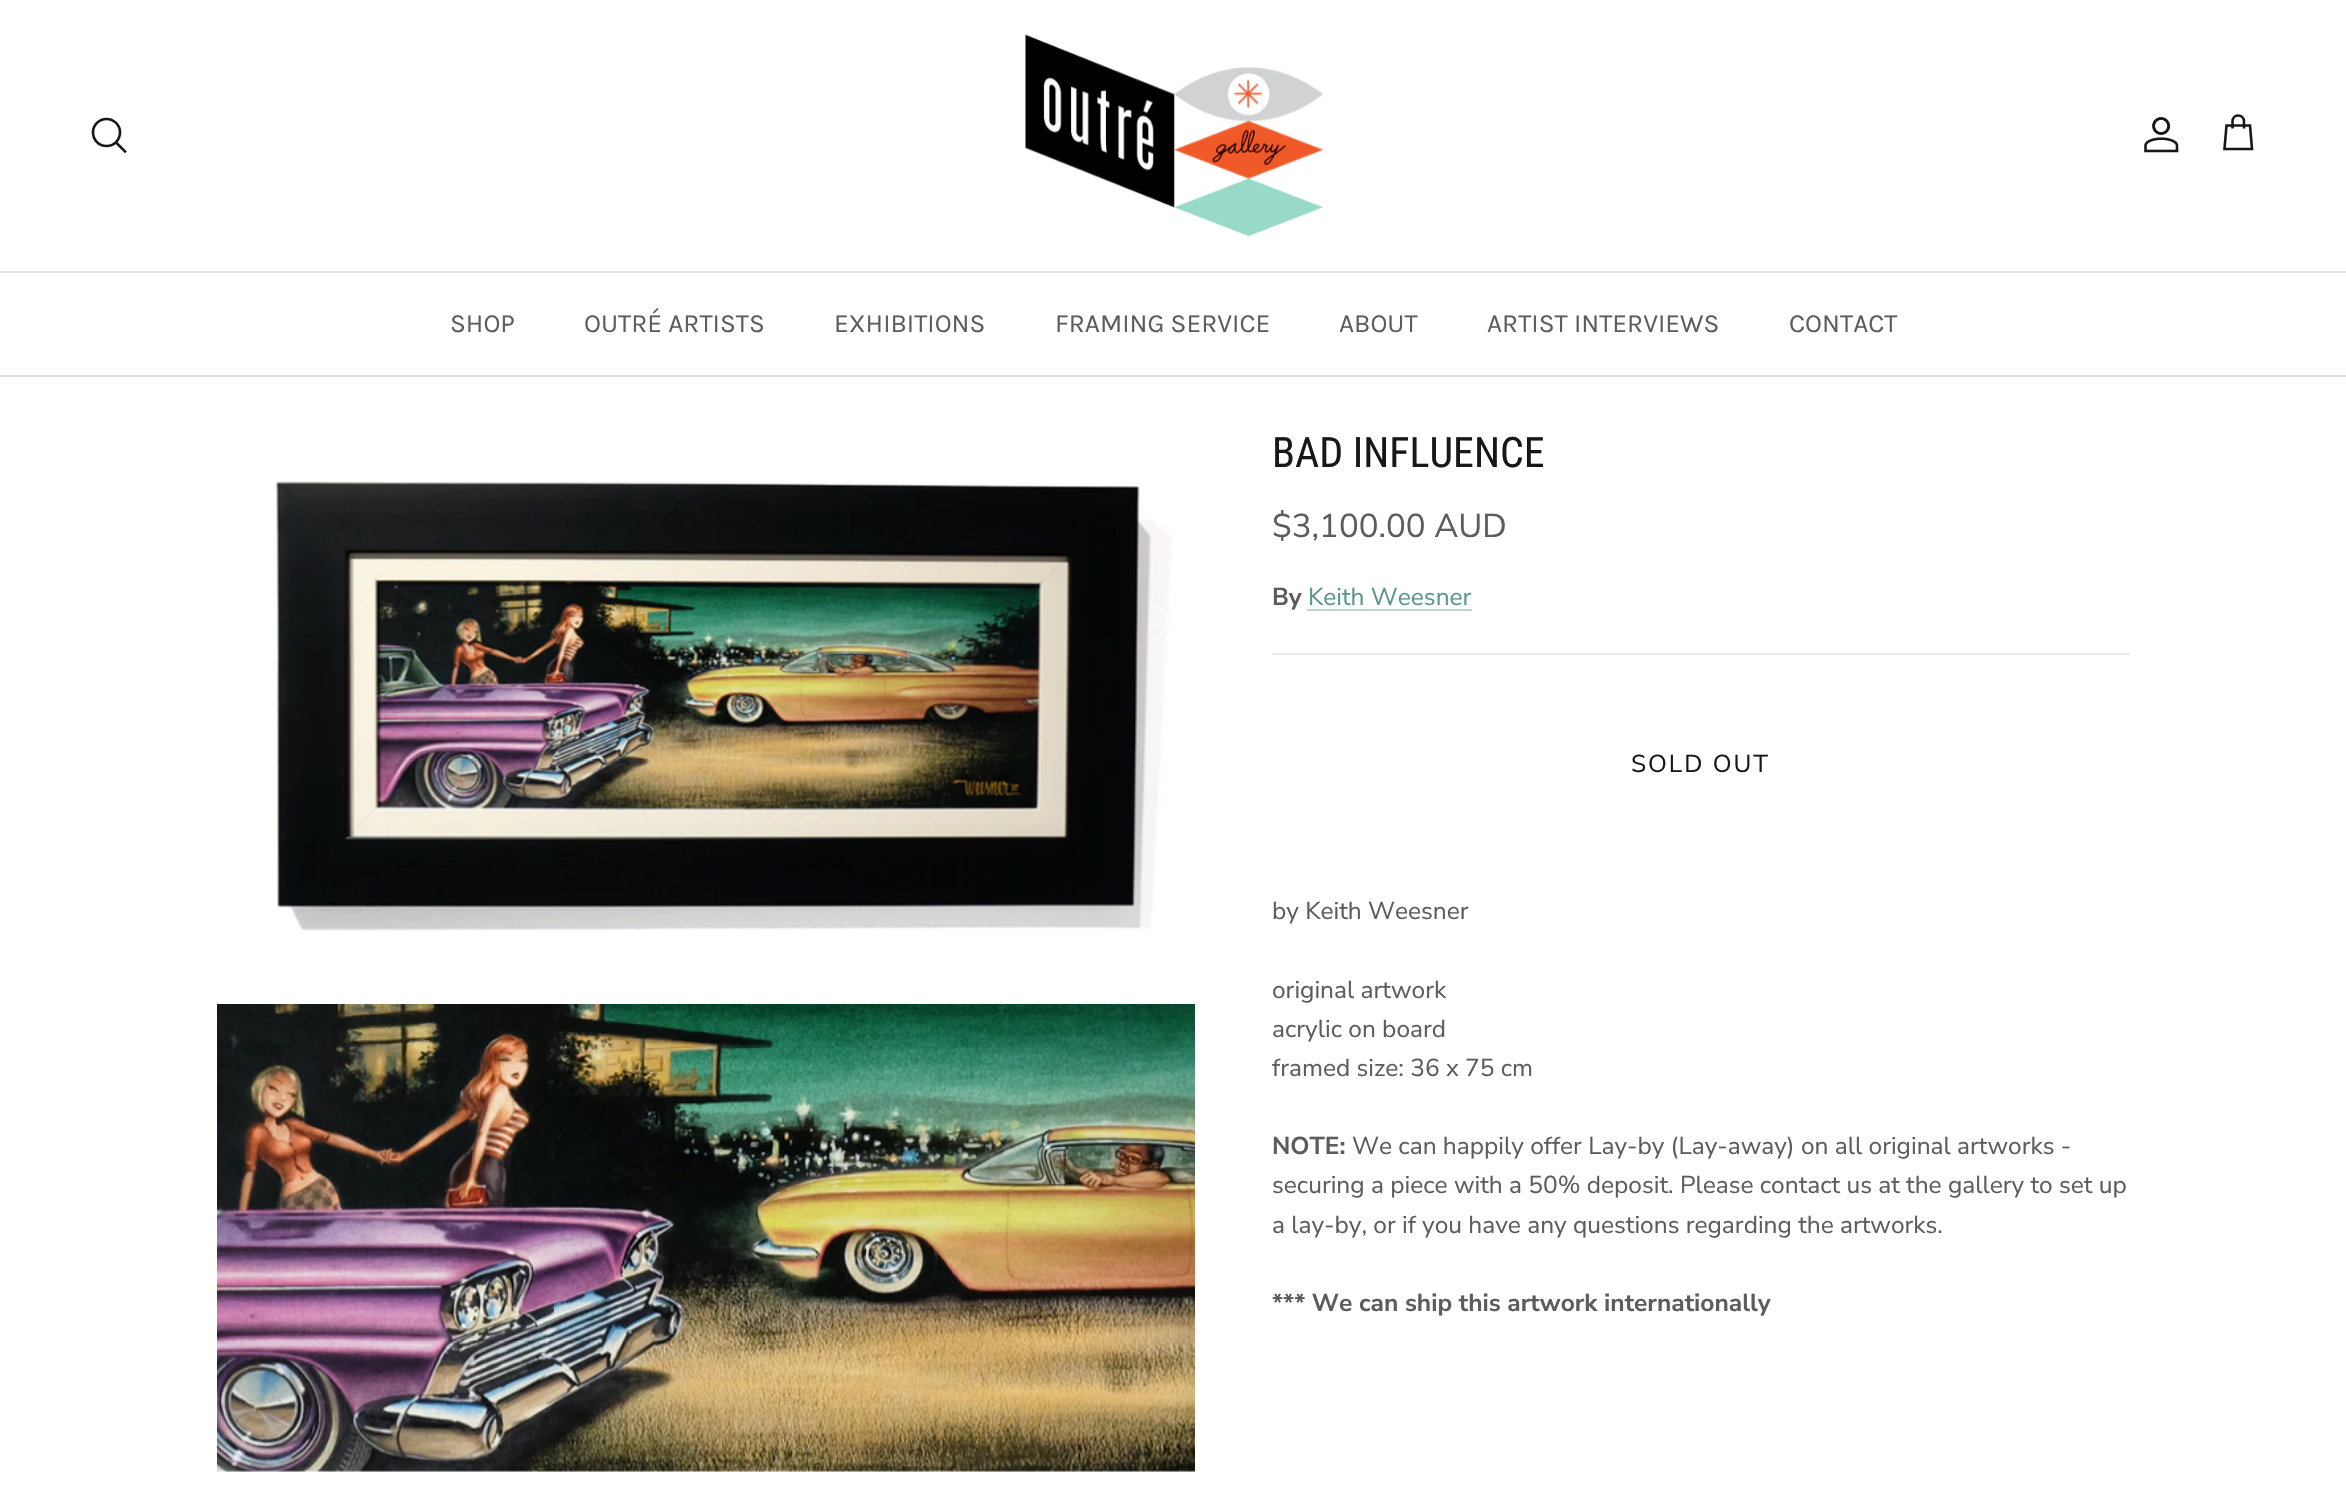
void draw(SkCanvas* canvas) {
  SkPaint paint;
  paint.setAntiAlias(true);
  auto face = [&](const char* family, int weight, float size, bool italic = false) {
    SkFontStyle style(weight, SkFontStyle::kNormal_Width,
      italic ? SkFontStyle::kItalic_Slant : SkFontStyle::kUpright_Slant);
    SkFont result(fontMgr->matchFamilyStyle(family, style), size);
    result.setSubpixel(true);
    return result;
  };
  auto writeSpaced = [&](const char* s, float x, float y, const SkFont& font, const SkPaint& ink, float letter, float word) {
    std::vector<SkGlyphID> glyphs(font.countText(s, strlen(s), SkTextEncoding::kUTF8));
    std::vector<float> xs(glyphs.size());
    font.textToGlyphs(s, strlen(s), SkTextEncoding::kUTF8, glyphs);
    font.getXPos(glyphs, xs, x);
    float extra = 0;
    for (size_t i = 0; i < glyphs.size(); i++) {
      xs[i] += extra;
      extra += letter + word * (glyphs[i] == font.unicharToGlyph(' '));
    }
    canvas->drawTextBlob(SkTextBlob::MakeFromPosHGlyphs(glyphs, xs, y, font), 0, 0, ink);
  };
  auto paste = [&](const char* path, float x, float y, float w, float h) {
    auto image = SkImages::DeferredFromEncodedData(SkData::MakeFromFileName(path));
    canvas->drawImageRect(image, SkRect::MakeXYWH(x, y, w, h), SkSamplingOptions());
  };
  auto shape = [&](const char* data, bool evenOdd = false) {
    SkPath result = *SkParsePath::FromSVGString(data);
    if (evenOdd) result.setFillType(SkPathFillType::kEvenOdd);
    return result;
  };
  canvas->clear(0xffffffff);
  paint.setColor(0xffdfe3e8);
  canvas->drawRect(SkRect::MakeXYWH(0, 271, 2346, 2), paint);
  paint.setStroke(true);
  paint.setStrokeWidth(2.6f);
  paint.setColor(0xff171717);
  canvas->drawCircle(106.5f, 132.5f, 13.5f, paint);
  paint.setStrokeCap(SkPaint::kSquare_Cap);
  canvas->drawPath(shape("M117 143.5L125 151.5"), paint);
  paste("img/1.png", 1025, 34, 298, 202);
  paste("img/2.png", 2144, 117, 35, 36);
  paint.setStrokeCap(SkPaint::kButt_Cap);
  canvas->drawPath(shape("M2244 128.5V121.5C2244 118 2241.5 115.5 2238 115.5C2235 115.5 2232.5 118 2232.5 121.5V128.5M2226.5 125.5H2250L2252 149H2224.5Z"), paint);
  paint.setStroke(false);
  paint.setColor(0xffdfe3e8);
  canvas->drawRect(SkRect::MakeXYWH(0, 375, 2346, 2), paint);
  paste("img/3.png", 276, 481, 896, 450);
  paste("img/4.png", 217, 1004, 978, 468);
  paint.setColor(0xffbdd5d1);
  canvas->drawRect(SkRect::MakeXYWH(1307, 609, 165, 2), paint);
  paint.setColor(0xffe8e8e8);
  canvas->drawRect(SkRect::MakeXYWH(1272, 653, 858, 2), paint);
  auto f0 = face("Karla", 400, 26.25f);
  paint.setColor(0xff5c5c5c);
  {
    const struct { const char* s; float x, y; } items[] = {
      {"SHOP", 450, 332},
      {"OUTRÉ ARTISTS", 584, 332},
      {"EXHIBITIONS", 834, 332},
      {"FRAMING SERVICE", 1055, 332},
      {"ABOUT", 1339, 332},
      {"ARTIST INTERVIEWS", 1487, 332},
      {"CONTACT", 1789, 332},
    };
    for (auto [s, x, y] : items) {
      canvas->drawString(s, x, y, f0, paint);
    }
  }
  auto f1 = face("Roboto Condensed", 400, 42);
  paint.setColor(0xff171717);
  canvas->drawString("BAD INFLUENCE", 1272, 467, f1, paint);
  auto f2 = face("Nunito Sans", 400, 33);
  paint.setColor(0xff5c5c5c);
  canvas->drawString("$3,100.00 AUD", 1272, 537, f2, paint);
  auto f3 = face("Nunito Sans", 700, 24.5f);
  canvas->drawString("By", 1272, 605, f3, paint);
  auto f4 = face("Nunito Sans", 400, 24.5f);
  paint.setColor(0xff5a968d);
  canvas->drawString("Keith Weesner", 1308, 605, f4, paint);
  paint.setColor(0xff171717);
  writeSpaced("SOLD OUT", 1631, 772, f4, paint, 2, 0);
  paint.setColor(0xff5c5c5c);
  {
    const struct { const char* s; float x, y; } items[] = {
      {"by Keith Weesner", 1272, 919},
      {"original artwork", 1272, 998},
      {"acrylic on board", 1272, 1037},
      {"framed size: 36 x 75 cm", 1272, 1076},
    };
    for (auto [s, x, y] : items) {
      canvas->drawString(s, x, y, f4, paint);
    }
  }
  canvas->drawString("NOTE:", 1272, 1154, f3, paint);
  {
    const struct { const char* s; float x, y; } items[] = {
      {"We can happily offer Lay-by (Lay-away) on all original artworks -", 1352, 1154},
      {"securing a piece with a 50% deposit. Please contact us at the gallery to set up", 1272, 1193},
      {"a lay-by, or if you have any questions regarding the artworks.", 1272, 1233},
    };
    for (auto [s, x, y] : items) {
      canvas->drawString(s, x, y, f4, paint);
    }
  }
  canvas->drawString("*** We can ship this artwork internationally", 1272, 1311, f3, paint);
}
